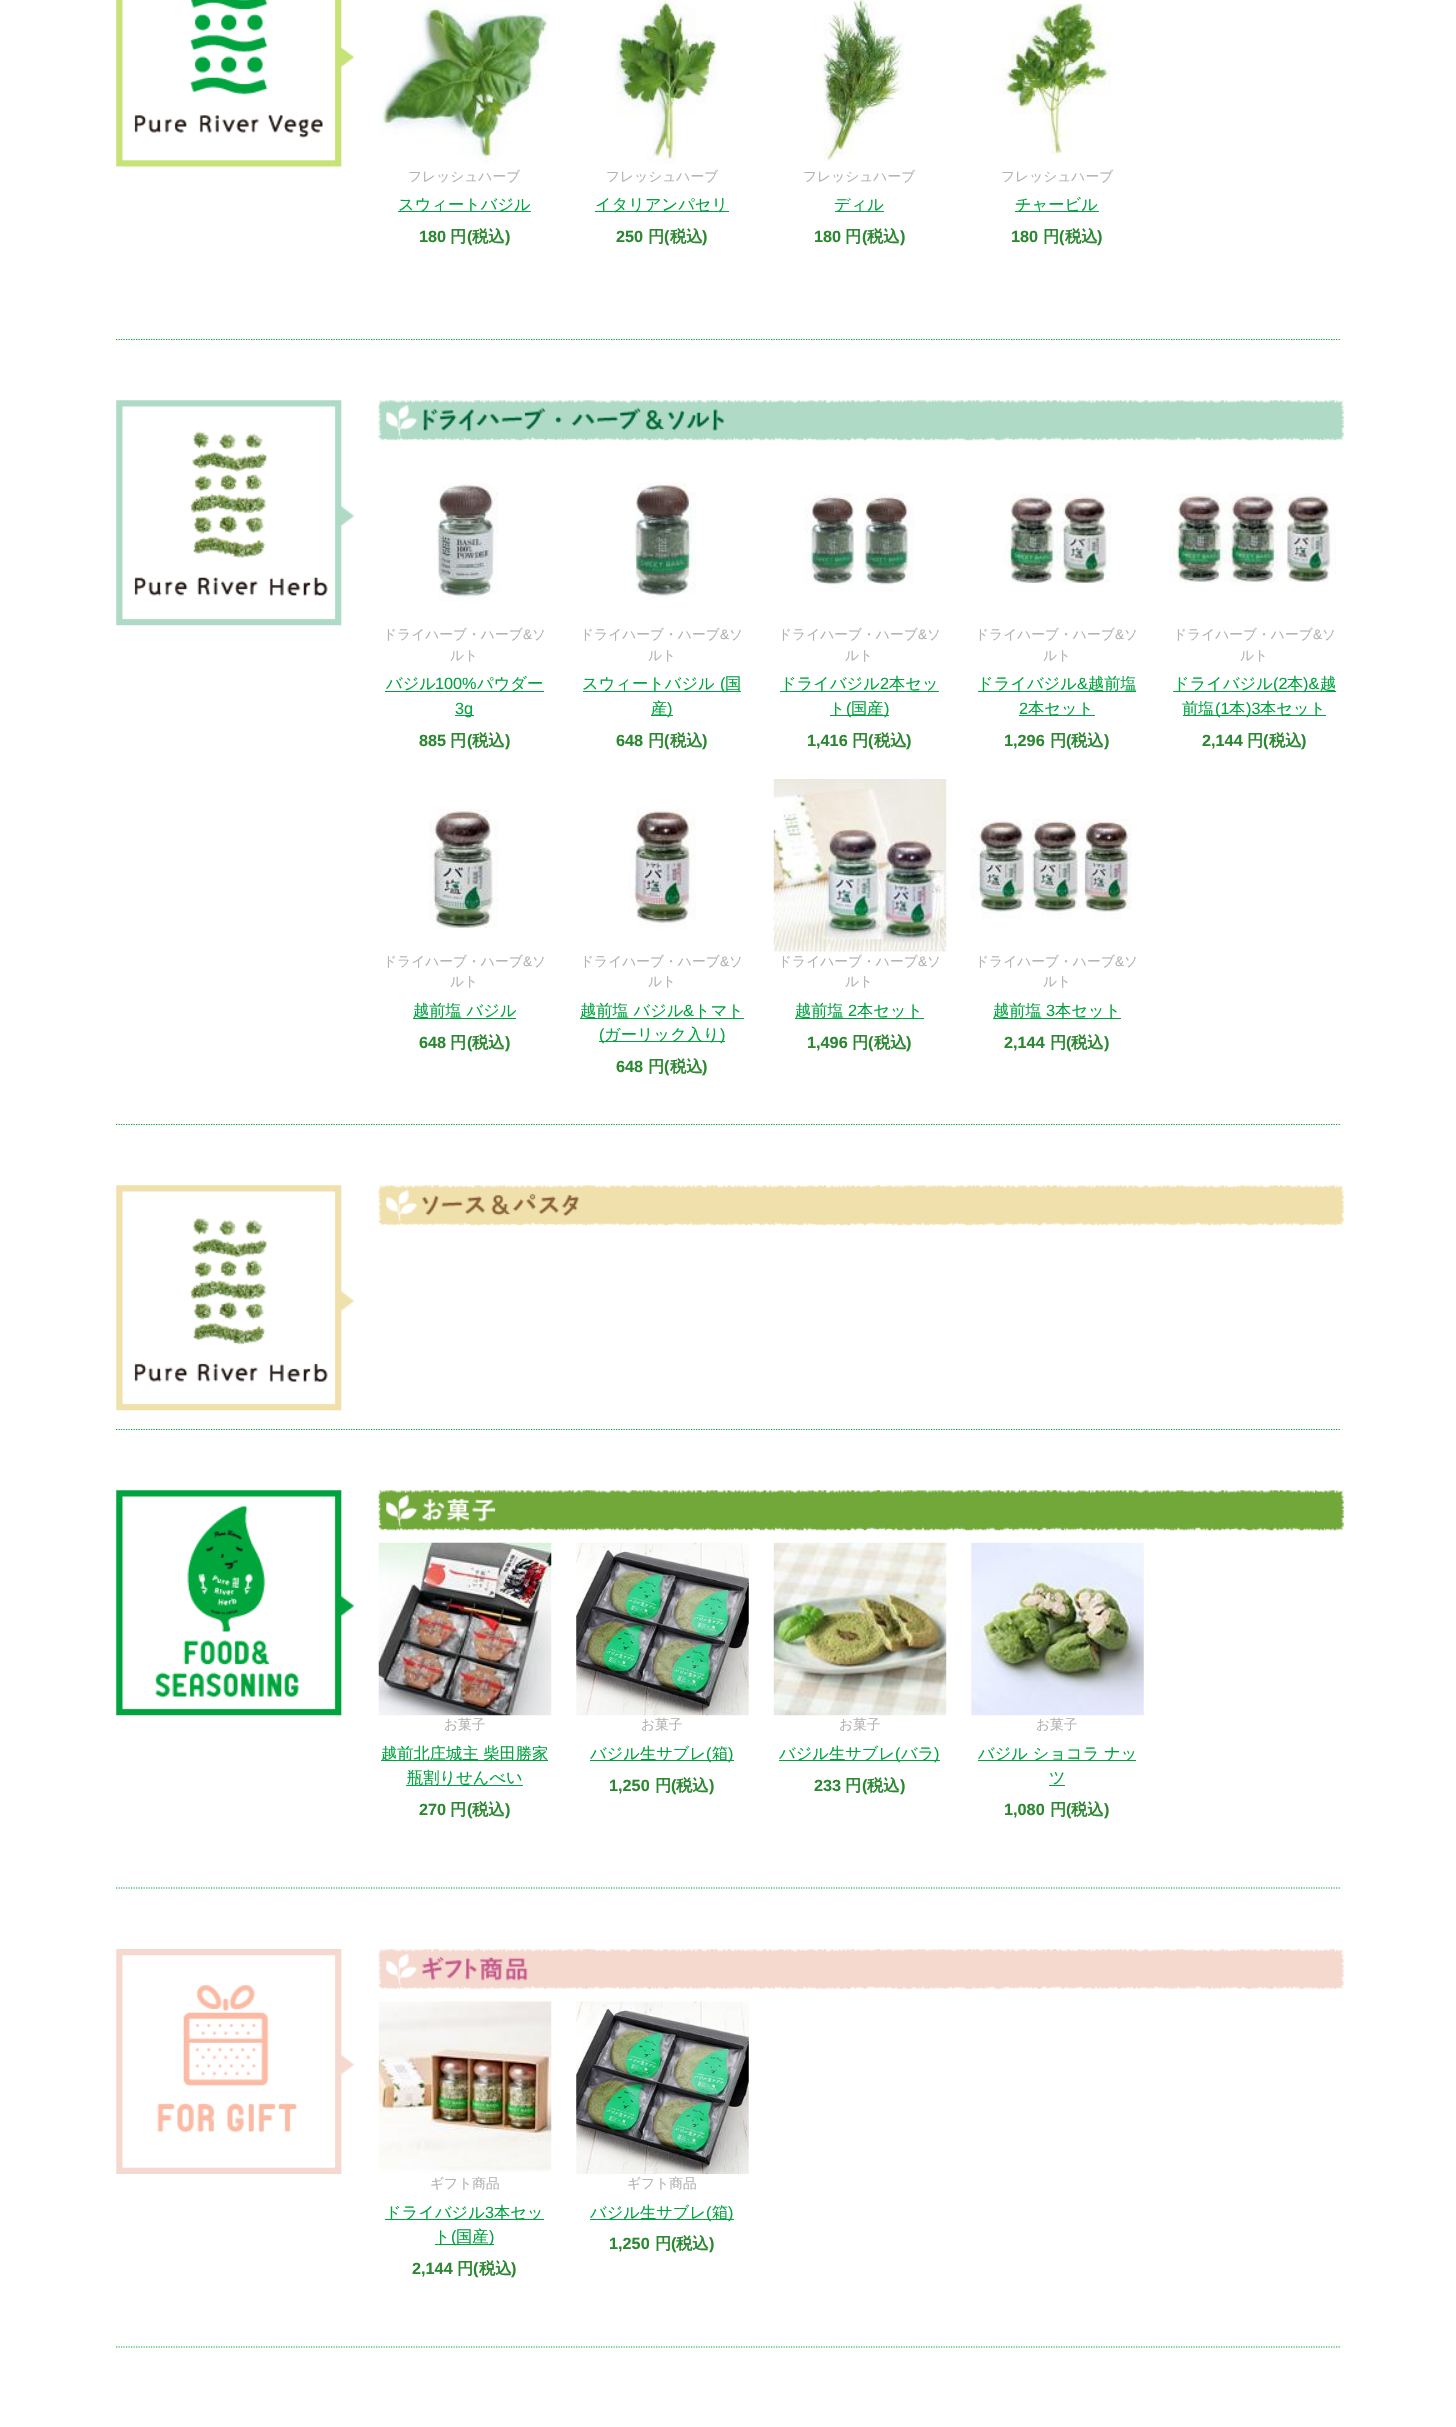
void draw(SkCanvas* canvas) {
  SkPaint paint;
  paint.setAntiAlias(true);
  auto face = [&](const char* family, int weight, float size, bool italic = false) {
    SkFontStyle style(weight, SkFontStyle::kNormal_Width,
      italic ? SkFontStyle::kItalic_Slant : SkFontStyle::kUpright_Slant);
    SkFont result(fontMgr->matchFamilyStyle(family, style), size);
    result.setSubpixel(true);
    return result;
  };
  auto paste = [&](const char* path, float x, float y, float w, float h) {
    auto image = SkImages::DeferredFromEncodedData(SkData::MakeFromFileName(path));
    canvas->drawImageRect(image, SkRect::MakeXYWH(x, y, w, h), SkSamplingOptions());
  };
  auto shape = [&](const char* data, bool evenOdd = false) {
    SkPath result = *SkParsePath::FromSVGString(data);
    if (evenOdd) result.setFillType(SkPathFillType::kEvenOdd);
    return result;
  };
  canvas->clear(0xffffffff);
  paint.setStroke(true);
  paint.setStrokeWidth(1.2f);
  paint.setColor(0xff00a33e);
  paint.setPathEffect(SkDashPathEffect::Make({{1.25f, 1.25f}}, 0));
  canvas->drawPath(shape("M116 339.5H1341"), paint);
  paint.setPathEffect(nullptr);
  paste("img/1.png", 116, 0, 238, 167);
  paste("img/2.png", 379, 0, 170, 164);
  paint.setStroke(false);
  canvas->drawRect(SkRect::MakeXYWH(398, 211, 133, 1), paint);
  paste("img/3.png", 615, 0, 102, 164);
  canvas->drawRect(SkRect::MakeXYWH(595, 211, 134, 1), paint);
  paste("img/4.png", 814, 0, 90, 161);
  canvas->drawRect(SkRect::MakeXYWH(835, 211, 49, 1), paint);
  paste("img/5.png", 992, 0, 119, 155);
  canvas->drawRect(SkRect::MakeXYWH(1015, 211, 84, 1), paint);
  paint.setStroke(true);
  paint.setPathEffect(SkDashPathEffect::Make({{1.25f, 1.25f}}, 0));
  canvas->drawPath(shape("M116 1124.5H1341"), paint);
  paint.setPathEffect(nullptr);
  paste("img/6.png", 116, 400, 238, 226);
  paste("img/7.png", 378, 400, 966, 41);
  paste("img/8.png", 437, 483, 62, 118);
  paint.setStroke(false);
  canvas->drawRect(SkRect::MakeXYWH(385, 691, 159, 1), paint);
  canvas->drawRect(SkRect::MakeXYWH(455, 715, 19, 1), paint);
  paste("img/9.png", 634, 482, 63, 119);
  canvas->drawRect(SkRect::MakeXYWH(583, 691, 158, 1), paint);
  canvas->drawRect(SkRect::MakeXYWH(651, 715, 22, 1), paint);
  paste("img/10.png", 804, 493, 110, 100);
  canvas->drawRect(SkRect::MakeXYWH(780, 691, 159, 1), paint);
  canvas->drawRect(SkRect::MakeXYWH(830, 715, 59, 1), paint);
  paste("img/11.png", 1004, 493, 107, 90);
  canvas->drawRect(SkRect::MakeXYWH(978, 691, 158, 1), paint);
  canvas->drawRect(SkRect::MakeXYWH(1019, 715, 76, 1), paint);
  paste("img/12.png", 1169, 493, 167, 90);
  canvas->drawRect(SkRect::MakeXYWH(1173, 691, 163, 1), paint);
  canvas->drawRect(SkRect::MakeXYWH(1183, 715, 143, 1), paint);
  paste("img/13.png", 429, 809, 70, 120);
  canvas->drawRect(SkRect::MakeXYWH(413, 1018, 103, 1), paint);
  paste("img/14.png", 629, 808, 67, 121);
  canvas->drawRect(SkRect::MakeXYWH(580, 1018, 164, 1), paint);
  canvas->drawRect(SkRect::MakeXYWH(599, 1041, 126, 1), paint);
  paste("img/15.png", 773, 779, 174, 173);
  canvas->drawRect(SkRect::MakeXYWH(795, 1018, 129, 1), paint);
  paste("img/16.png", 971, 819, 161, 100);
  canvas->drawRect(SkRect::MakeXYWH(993, 1018, 128, 1), paint);
  paint.setStroke(true);
  paint.setPathEffect(SkDashPathEffect::Make({{1.25f, 1.25f}}, 0));
  canvas->drawPath(shape("M116 1429.5H1341"), paint);
  paint.setPathEffect(nullptr);
  paste("img/17.png", 116, 1185, 238, 226);
  paste("img/18.png", 378, 1185, 966, 41);
  paint.setPathEffect(SkDashPathEffect::Make({{1.25f, 1.25f}}, 0));
  canvas->drawPath(shape("M116 1888H1341"), paint);
  paint.setPathEffect(nullptr);
  paste("img/19.png", 116, 1490, 238, 226);
  paste("img/20.png", 378, 1490, 966, 41);
  paste("img/21.png", 378, 1542, 174, 174);
  paint.setStroke(false);
  canvas->drawRect(SkRect::MakeXYWH(381, 1760, 167, 1), paint);
  canvas->drawRect(SkRect::MakeXYWH(406, 1785, 117, 1), paint);
  paste("img/22.png", 576, 1542, 173, 174);
  canvas->drawRect(SkRect::MakeXYWH(590, 1760, 144, 1), paint);
  paste("img/23.png", 773, 1542, 174, 174);
  canvas->drawRect(SkRect::MakeXYWH(779, 1760, 161, 1), paint);
  paste("img/24.png", 971, 1542, 173, 174);
  canvas->drawRect(SkRect::MakeXYWH(978, 1760, 158, 1), paint);
  canvas->drawRect(SkRect::MakeXYWH(1049, 1785, 16, 1), paint);
  paint.setStroke(true);
  paint.setPathEffect(SkDashPathEffect::Make({{1.25f, 1.25f}}, 0));
  canvas->drawPath(shape("M116 2347H1341"), paint);
  paint.setPathEffect(nullptr);
  paste("img/25.png", 116, 1949, 238, 225);
  paste("img/26.png", 378, 1949, 966, 40);
  paste("img/27.png", 378, 2001, 174, 171);
  paint.setStroke(false);
  canvas->drawRect(SkRect::MakeXYWH(385, 2219, 159, 1), paint);
  canvas->drawRect(SkRect::MakeXYWH(435, 2244, 59, 1), paint);
  paste("img/28.png", 576, 2001, 173, 173);
  canvas->drawRect(SkRect::MakeXYWH(590, 2219, 144, 1), paint);
  auto f0 = face("WenQuanYi Zen Hei", 500, 13.75f);
  paint.setColor(0xffb2b2b2);
  canvas->drawString("フレッシュハーブ", 408, 181, f0, paint);
  auto f1 = face("WenQuanYi Zen Hei", 500, 16.25f);
  paint.setColor(0xff00a33e);
  canvas->drawString("スウィートバジル", 398, 210, f1, paint);
  auto f2 = face("Liberation Sans", 700, 16.25f);
  paint.setColor(0xff2b8730);
  canvas->drawString("180", 419, 242, f2, paint);
  auto f3 = face("WenQuanYi Zen Hei", 700, 16.25f);
  canvas->drawString("円", 450, 242, f3, paint);
  canvas->drawString("(", 467, 242, f2, paint);
  canvas->drawString("税込", 472, 242, f3, paint);
  canvas->drawString(")", 505, 242, f2, paint);
  paint.setColor(0xffb2b2b2);
  canvas->drawString("フレッシュハーブ", 606, 181, f0, paint);
  paint.setColor(0xff00a33e);
  canvas->drawString("イタリアンパセリ", 595, 210, f1, paint);
  paint.setColor(0xff2b8730);
  canvas->drawString("250", 616, 242, f2, paint);
  canvas->drawString("円", 648, 242, f3, paint);
  canvas->drawString("(", 664, 242, f2, paint);
  canvas->drawString("税込", 670, 242, f3, paint);
  canvas->drawString(")", 702, 242, f2, paint);
  paint.setColor(0xffb2b2b2);
  canvas->drawString("フレッシュハーブ", 803, 181, f0, paint);
  paint.setColor(0xff00a33e);
  canvas->drawString("ディル", 834, 210, f1, paint);
  paint.setColor(0xff2b8730);
  canvas->drawString("180", 814, 242, f2, paint);
  canvas->drawString("円", 845, 242, f3, paint);
  canvas->drawString("(", 862, 242, f2, paint);
  canvas->drawString("税込", 867, 242, f3, paint);
  canvas->drawString(")", 900, 242, f2, paint);
  paint.setColor(0xffb2b2b2);
  canvas->drawString("フレッシュハーブ", 1001, 181, f0, paint);
  paint.setColor(0xff00a33e);
  canvas->drawString("チャービル", 1015, 210, f1, paint);
  paint.setColor(0xff2b8730);
  canvas->drawString("180", 1011, 242, f2, paint);
  canvas->drawString("円", 1043, 242, f3, paint);
  canvas->drawString("(", 1059, 242, f2, paint);
  canvas->drawString("税込", 1065, 242, f3, paint);
  canvas->drawString(")", 1097, 242, f2, paint);
  paint.setColor(0xffb2b2b2);
  canvas->drawString("ドライハーブ・ハーブ", 383, 639, f0, paint);
  auto f4 = face("Liberation Sans", 400, 13.75f);
  canvas->drawString("&", 523, 639, f4, paint);
  canvas->drawString("ソ", 532, 639, f0, paint);
  canvas->drawString("ルト", 450, 660, f0, paint);
  paint.setColor(0xff00a33e);
  canvas->drawString("バジル", 386, 689, f1, paint);
  auto f5 = face("Liberation Sans", 400, 16.25f);
  canvas->drawString("100%", 435, 689, f5, paint);
  canvas->drawString("パウダー", 477, 689, f1, paint);
  canvas->drawString("3g", 455, 714, f5, paint);
  paint.setColor(0xff2b8730);
  canvas->drawString("885", 419, 746, f2, paint);
  canvas->drawString("円", 450, 746, f3, paint);
  canvas->drawString("(", 467, 746, f2, paint);
  canvas->drawString("税込", 472, 746, f3, paint);
  canvas->drawString(")", 505, 746, f2, paint);
  paint.setColor(0xffb2b2b2);
  canvas->drawString("ドライハーブ・ハーブ", 580, 639, f0, paint);
  canvas->drawString("&", 720, 639, f4, paint);
  canvas->drawString("ソ", 729, 639, f0, paint);
  canvas->drawString("ルト", 648, 660, f0, paint);
  paint.setColor(0xff00a33e);
  canvas->drawString("スウィートバジル", 582, 689, f1, paint);
  canvas->drawString("(", 720, 689, f5, paint);
  canvas->drawString("国", 725, 689, f1, paint);
  canvas->drawString("産", 651, 714, f1, paint);
  canvas->drawString(")", 667, 714, f5, paint);
  paint.setColor(0xff2b8730);
  canvas->drawString("648", 616, 746, f2, paint);
  canvas->drawString("円", 648, 746, f3, paint);
  canvas->drawString("(", 664, 746, f2, paint);
  canvas->drawString("税込", 670, 746, f3, paint);
  canvas->drawString(")", 702, 746, f2, paint);
  paint.setColor(0xffb2b2b2);
  canvas->drawString("ドライハーブ・ハーブ", 778, 639, f0, paint);
  canvas->drawString("&", 918, 639, f4, paint);
  canvas->drawString("ソ", 927, 639, f0, paint);
  canvas->drawString("ルト", 845, 660, f0, paint);
  paint.setColor(0xff00a33e);
  canvas->drawString("ドライバジル", 780, 689, f1, paint);
  canvas->drawString("2", 880, 689, f5, paint);
  canvas->drawString("本セッ", 889, 689, f1, paint);
  canvas->drawString("ト", 829, 714, f1, paint);
  canvas->drawString("(", 846, 714, f5, paint);
  canvas->drawString("国産", 851, 714, f1, paint);
  canvas->drawString(")", 884, 714, f5, paint);
  paint.setColor(0xff2b8730);
  canvas->drawString("1,416", 807, 746, f2, paint);
  canvas->drawString("円", 852, 746, f3, paint);
  canvas->drawString("(", 868, 746, f2, paint);
  canvas->drawString("税込", 874, 746, f3, paint);
  canvas->drawString(")", 906, 746, f2, paint);
  paint.setColor(0xffb2b2b2);
  canvas->drawString("ドライハーブ・ハーブ", 975, 639, f0, paint);
  canvas->drawString("&", 1115, 639, f4, paint);
  canvas->drawString("ソ", 1124, 639, f0, paint);
  canvas->drawString("ルト", 1043, 660, f0, paint);
  paint.setColor(0xff00a33e);
  canvas->drawString("ドライバジル", 977, 689, f1, paint);
  canvas->drawString("&", 1077, 689, f5, paint);
  canvas->drawString("越前塩", 1088, 689, f1, paint);
  canvas->drawString("2", 1019, 714, f5, paint);
  canvas->drawString("本セット", 1028, 714, f1, paint);
  paint.setColor(0xff2b8730);
  canvas->drawString("1,296", 1004, 746, f2, paint);
  canvas->drawString("円", 1050, 746, f3, paint);
  canvas->drawString("(", 1066, 746, f2, paint);
  canvas->drawString("税込", 1071, 746, f3, paint);
  canvas->drawString(")", 1104, 746, f2, paint);
  paint.setColor(0xffb2b2b2);
  canvas->drawString("ドライハーブ・ハーブ", 1173, 639, f0, paint);
  canvas->drawString("&", 1313, 639, f4, paint);
  canvas->drawString("ソ", 1322, 639, f0, paint);
  canvas->drawString("ルト", 1240, 660, f0, paint);
  paint.setColor(0xff00a33e);
  canvas->drawString("ドライバジル", 1173, 689, f1, paint);
  canvas->drawString("(2", 1273, 689, f5, paint);
  canvas->drawString("本", 1287, 689, f1, paint);
  canvas->drawString(")&", 1303, 689, f5, paint);
  canvas->drawString("越", 1320, 689, f1, paint);
  canvas->drawString("前塩", 1182, 714, f1, paint);
  canvas->drawString("(1", 1215, 714, f5, paint);
  canvas->drawString("本", 1229, 714, f1, paint);
  canvas->drawString(")3", 1246, 714, f5, paint);
  canvas->drawString("本セット", 1260, 714, f1, paint);
  paint.setColor(0xff2b8730);
  canvas->drawString("2,144", 1202, 746, f2, paint);
  canvas->drawString("円", 1247, 746, f3, paint);
  canvas->drawString("(", 1263, 746, f2, paint);
  canvas->drawString("税込", 1269, 746, f3, paint);
  canvas->drawString(")", 1301, 746, f2, paint);
  paint.setColor(0xffb2b2b2);
  canvas->drawString("ドライハーブ・ハーブ", 383, 966, f0, paint);
  canvas->drawString("&", 523, 966, f4, paint);
  canvas->drawString("ソ", 532, 966, f0, paint);
  canvas->drawString("ルト", 450, 986, f0, paint);
  paint.setColor(0xff00a33e);
  canvas->drawString("越前塩 バジル", 413, 1016, f1, paint);
  paint.setColor(0xff2b8730);
  canvas->drawString("648", 419, 1048, f2, paint);
  canvas->drawString("円", 450, 1048, f3, paint);
  canvas->drawString("(", 467, 1048, f2, paint);
  canvas->drawString("税込", 472, 1048, f3, paint);
  canvas->drawString(")", 505, 1048, f2, paint);
  paint.setColor(0xffb2b2b2);
  canvas->drawString("ドライハーブ・ハーブ", 580, 966, f0, paint);
  canvas->drawString("&", 720, 966, f4, paint);
  canvas->drawString("ソ", 729, 966, f0, paint);
  canvas->drawString("ルト", 648, 986, f0, paint);
  paint.setColor(0xff00a33e);
  canvas->drawString("越前塩 バジル", 580, 1016, f1, paint);
  canvas->drawString("&", 683, 1016, f5, paint);
  canvas->drawString("トマト", 694, 1016, f1, paint);
  canvas->drawString("(", 599, 1040, f5, paint);
  canvas->drawString("ガーリック入り", 604, 1040, f1, paint);
  canvas->drawString(")", 720, 1040, f5, paint);
  paint.setColor(0xff2b8730);
  canvas->drawString("648", 616, 1072, f2, paint);
  canvas->drawString("円", 648, 1072, f3, paint);
  canvas->drawString("(", 664, 1072, f2, paint);
  canvas->drawString("税込", 670, 1072, f3, paint);
  canvas->drawString(")", 702, 1072, f2, paint);
  paint.setColor(0xffb2b2b2);
  canvas->drawString("ドライハーブ・ハーブ", 778, 966, f0, paint);
  canvas->drawString("&", 918, 966, f4, paint);
  canvas->drawString("ソ", 927, 966, f0, paint);
  canvas->drawString("ルト", 845, 986, f0, paint);
  paint.setColor(0xff00a33e);
  canvas->drawString("越前塩", 795, 1016, f1, paint);
  canvas->drawString("2", 848, 1016, f5, paint);
  canvas->drawString("本セット", 857, 1016, f1, paint);
  paint.setColor(0xff2b8730);
  canvas->drawString("1,496", 807, 1048, f2, paint);
  canvas->drawString("円", 852, 1048, f3, paint);
  canvas->drawString("(", 868, 1048, f2, paint);
  canvas->drawString("税込", 874, 1048, f3, paint);
  canvas->drawString(")", 906, 1048, f2, paint);
  paint.setColor(0xffb2b2b2);
  canvas->drawString("ドライハーブ・ハーブ", 975, 966, f0, paint);
  canvas->drawString("&", 1115, 966, f4, paint);
  canvas->drawString("ソ", 1124, 966, f0, paint);
  canvas->drawString("ルト", 1043, 986, f0, paint);
  paint.setColor(0xff00a33e);
  canvas->drawString("越前塩", 993, 1016, f1, paint);
  canvas->drawString("3", 1046, 1016, f5, paint);
  canvas->drawString("本セット", 1055, 1016, f1, paint);
  paint.setColor(0xff2b8730);
  canvas->drawString("2,144", 1004, 1048, f2, paint);
  canvas->drawString("円", 1050, 1048, f3, paint);
  canvas->drawString("(", 1066, 1048, f2, paint);
  canvas->drawString("税込", 1071, 1048, f3, paint);
  canvas->drawString(")", 1104, 1048, f2, paint);
  paint.setColor(0xffb2b2b2);
  canvas->drawString("お菓子", 444, 1729, f0, paint);
  paint.setColor(0xff00a33e);
  canvas->drawString("越前北庄城主 柴田勝家", 381, 1759, f1, paint);
  canvas->drawString("瓶割りせんべい", 407, 1783, f1, paint);
  paint.setColor(0xff2b8730);
  canvas->drawString("270", 419, 1815, f2, paint);
  canvas->drawString("円", 450, 1815, f3, paint);
  canvas->drawString("(", 467, 1815, f2, paint);
  canvas->drawString("税込", 472, 1815, f3, paint);
  canvas->drawString(")", 505, 1815, f2, paint);
  paint.setColor(0xffb2b2b2);
  canvas->drawString("お菓子", 641, 1729, f0, paint);
  paint.setColor(0xff00a33e);
  canvas->drawString("バジル生サブレ", 590, 1759, f1, paint);
  canvas->drawString("(", 706, 1759, f5, paint);
  canvas->drawString("箱", 712, 1759, f1, paint);
  canvas->drawString(")", 728, 1759, f5, paint);
  paint.setColor(0xff2b8730);
  canvas->drawString("1,250", 609, 1791, f2, paint);
  canvas->drawString("円", 655, 1791, f3, paint);
  canvas->drawString("(", 671, 1791, f2, paint);
  canvas->drawString("税込", 676, 1791, f3, paint);
  canvas->drawString(")", 709, 1791, f2, paint);
  paint.setColor(0xffb2b2b2);
  canvas->drawString("お菓子", 839, 1729, f0, paint);
  paint.setColor(0xff00a33e);
  canvas->drawString("バジル生サブレ", 779, 1759, f1, paint);
  canvas->drawString("(", 895, 1759, f5, paint);
  canvas->drawString("バラ", 901, 1759, f1, paint);
  canvas->drawString(")", 934, 1759, f5, paint);
  paint.setColor(0xff2b8730);
  canvas->drawString("233", 814, 1791, f2, paint);
  canvas->drawString("円", 845, 1791, f3, paint);
  canvas->drawString("(", 862, 1791, f2, paint);
  canvas->drawString("税込", 867, 1791, f3, paint);
  canvas->drawString(")", 900, 1791, f2, paint);
  paint.setColor(0xffb2b2b2);
  canvas->drawString("お菓子", 1036, 1729, f0, paint);
  paint.setColor(0xff00a33e);
  canvas->drawString("バジル ショコラ ナッ", 978, 1759, f1, paint);
  canvas->drawString("ツ", 1049, 1783, f1, paint);
  paint.setColor(0xff2b8730);
  canvas->drawString("1,080", 1004, 1815, f2, paint);
  canvas->drawString("円", 1050, 1815, f3, paint);
  canvas->drawString("(", 1066, 1815, f2, paint);
  canvas->drawString("税込", 1071, 1815, f3, paint);
  canvas->drawString(")", 1104, 1815, f2, paint);
  paint.setColor(0xffb2b2b2);
  canvas->drawString("ギフト商品", 430, 2188, f0, paint);
  paint.setColor(0xff00a33e);
  canvas->drawString("ドライバジル", 385, 2218, f1, paint);
  canvas->drawString("3", 485, 2218, f5, paint);
  canvas->drawString("本セッ", 494, 2218, f1, paint);
  canvas->drawString("ト", 434, 2242, f1, paint);
  canvas->drawString("(", 451, 2242, f5, paint);
  canvas->drawString("国産", 456, 2242, f1, paint);
  canvas->drawString(")", 489, 2242, f5, paint);
  paint.setColor(0xff2b8730);
  canvas->drawString("2,144", 412, 2274, f2, paint);
  canvas->drawString("円", 457, 2274, f3, paint);
  canvas->drawString("(", 473, 2274, f2, paint);
  canvas->drawString("税込", 479, 2274, f3, paint);
  canvas->drawString(")", 511, 2274, f2, paint);
  paint.setColor(0xffb2b2b2);
  canvas->drawString("ギフト商品", 627, 2188, f0, paint);
  paint.setColor(0xff00a33e);
  canvas->drawString("バジル生サブレ", 590, 2218, f1, paint);
  canvas->drawString("(", 706, 2218, f5, paint);
  canvas->drawString("箱", 712, 2218, f1, paint);
  canvas->drawString(")", 728, 2218, f5, paint);
  paint.setColor(0xff2b8730);
  canvas->drawString("1,250", 609, 2249, f2, paint);
  canvas->drawString("円", 655, 2249, f3, paint);
  canvas->drawString("(", 671, 2249, f2, paint);
  canvas->drawString("税込", 676, 2249, f3, paint);
  canvas->drawString(")", 709, 2249, f2, paint);
}
